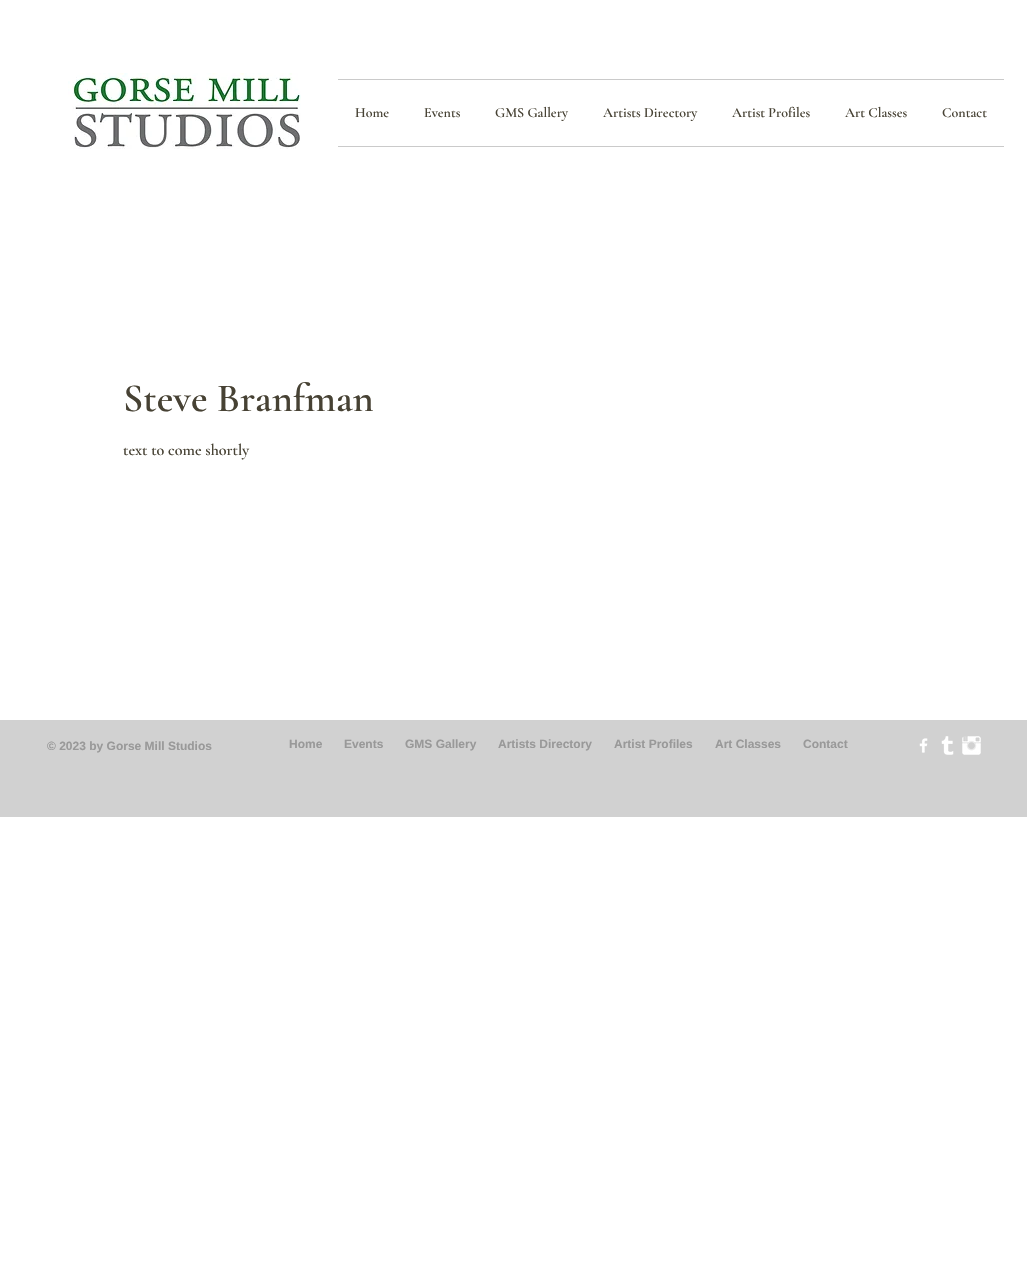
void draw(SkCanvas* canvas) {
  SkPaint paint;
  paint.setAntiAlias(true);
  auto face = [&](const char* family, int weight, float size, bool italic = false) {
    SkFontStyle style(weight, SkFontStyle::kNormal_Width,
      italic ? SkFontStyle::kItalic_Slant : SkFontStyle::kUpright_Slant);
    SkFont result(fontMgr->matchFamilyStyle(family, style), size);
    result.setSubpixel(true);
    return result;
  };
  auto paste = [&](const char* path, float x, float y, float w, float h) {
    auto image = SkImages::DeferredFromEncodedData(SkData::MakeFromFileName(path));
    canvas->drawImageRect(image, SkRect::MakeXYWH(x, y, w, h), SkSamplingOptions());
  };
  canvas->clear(0xffffffff);
  paste("img/1.png", 68, 73, 233, 76);
  {
    const struct { float x, y, w, h; SkColor color; } items[] = {
      {338, 79, 666, 1, 0xffcacaca},
      {338, 146, 666, 1, 0xffcacaca},
      {0, 720, 1027, 97, 0xffd1d1d1},
    };
    for (auto [x, y, w, h, color] : items) {
      paint.setColor(color);
      canvas->drawRect(SkRect::MakeXYWH(x, y, w, h), paint);
    }
  }
  paste("img/2.png", 919, 738, 9, 15);
  paste("img/3.png", 941, 736, 13, 19);
  paste("img/4.png", 962, 736, 19, 19);
  auto f0 = face("Cormorant Garamond", 600, 14);
  paint.setColor(0xff474234);
  {
    const struct { const char* s; float x, y; } items[] = {
      {"Home", 355, 117},
      {"Events", 424, 117},
      {"GMS Gallery", 495, 117},
      {"Artists Directory", 603, 117},
      {"Artist Profiles", 732, 117},
      {"Art Classes", 845, 117},
      {"Contact", 942, 117},
    };
    for (auto [s, x, y] : items) {
      canvas->drawString(s, x, y, f0, paint);
    }
  }
  auto f1 = face("Cormorant Garamond", 600, 40);
  canvas->drawString("Steve Branfman", 123, 411, f1, paint);
  auto f2 = face("Cormorant Garamond", 600, 16);
  canvas->drawString("text to come shortly", 123, 455, f2, paint);
  auto f3 = face("Liberation Sans", 700, 12);
  paint.setColor(0xff999999);
  {
    const struct { const char* s; float x, y; } items[] = {
      {"© 2023 by Gorse Mill Studios", 47, 750},
      {"Home", 289, 748},
      {"Events", 344, 748},
      {"GMS Gallery", 405, 748},
      {"Artists Directory", 498, 748},
      {"Artist Profiles", 614, 748},
      {"Art Classes", 715, 748},
      {"Contact", 803, 748},
    };
    for (auto [s, x, y] : items) {
      canvas->drawString(s, x, y, f3, paint);
    }
  }
}
